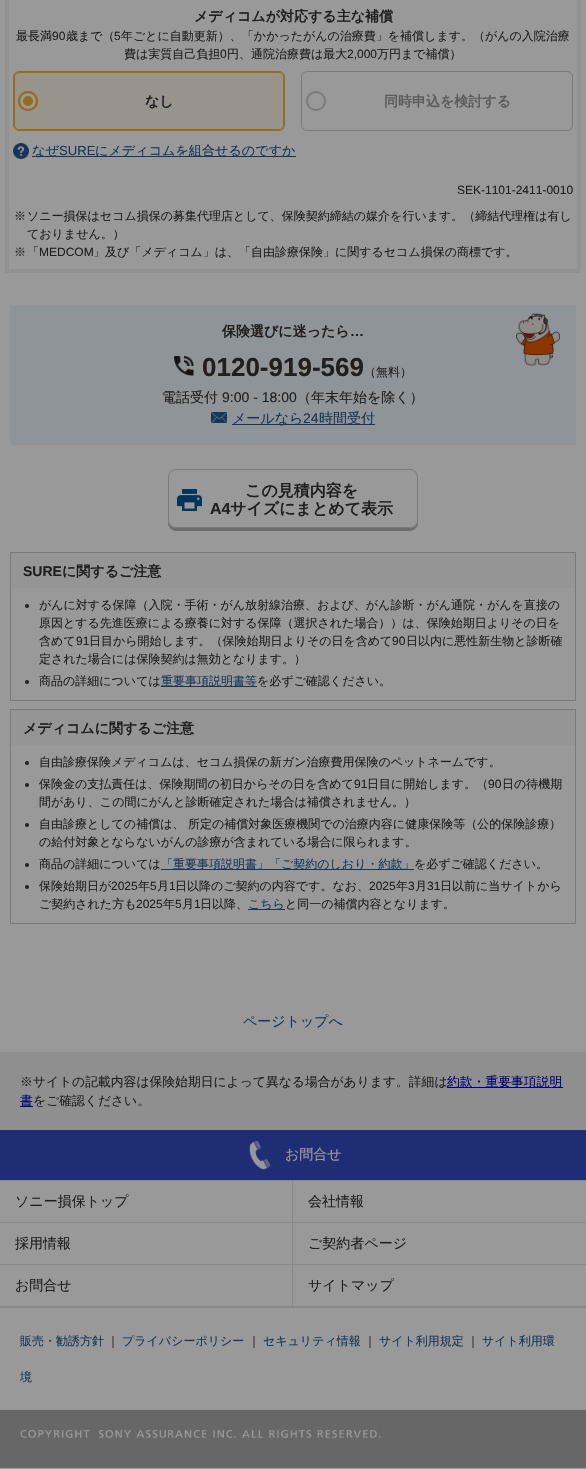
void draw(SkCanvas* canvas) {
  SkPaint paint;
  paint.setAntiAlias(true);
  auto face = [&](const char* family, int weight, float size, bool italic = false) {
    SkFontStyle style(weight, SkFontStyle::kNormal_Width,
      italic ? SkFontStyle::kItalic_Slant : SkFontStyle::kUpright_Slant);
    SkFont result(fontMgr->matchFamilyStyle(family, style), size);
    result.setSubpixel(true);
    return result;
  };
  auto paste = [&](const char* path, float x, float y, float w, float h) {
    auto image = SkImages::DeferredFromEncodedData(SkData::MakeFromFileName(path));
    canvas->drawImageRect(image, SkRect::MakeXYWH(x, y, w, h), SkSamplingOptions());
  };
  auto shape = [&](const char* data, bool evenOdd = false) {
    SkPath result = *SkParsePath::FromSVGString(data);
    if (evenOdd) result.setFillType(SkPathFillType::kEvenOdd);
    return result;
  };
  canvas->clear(0xffffffff);
  paint.setStroke(true);
  paint.setStrokeWidth(4);
  paint.setColor(0xfff1f1f1);
  canvas->drawRect(SkRect::MakeXYWH(7, -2, 572, 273), paint);
  paint.setStroke(false);
  paint.setColor(0xfffef7ea);
  canvas->drawRoundRect(SkRect::MakeXYWH(13, 71, 272, 60), 6, 6, paint);
  paint.setStroke(true);
  paint.setStrokeWidth(1);
  paint.setColor(0xfff8b62d);
  canvas->drawRoundRect(SkRect::MakeXYWH(14.5f, 72.5f, 269, 57), 4.5f, 4.5f, paint);
  canvas->drawRoundRect(SkRect::MakeXYWH(13.5f, 71.5f, 271, 59), 5.5f, 5.5f, paint);
  paint.setStroke(false);
  canvas->drawCircle(28, 101, 10, paint);
  paint.setStroke(true);
  paint.setStrokeWidth(3);
  paint.setColor(0xffffffff);
  canvas->drawCircle(28, 101, 6.5f, paint);
  paint.setStrokeWidth(2);
  paint.setColor(0xfff8b62d);
  canvas->drawCircle(28, 101, 9, paint);
  paint.setStrokeWidth(1);
  paint.setColor(0xffcccccc);
  canvas->drawRoundRect(SkRect::MakeXYWH(301.5f, 71.5f, 271, 59), 5.5f, 5.5f, paint);
  paint.setStrokeWidth(2);
  canvas->drawCircle(316, 101, 9, paint);
  paste("img/1.png", 13, 143, 16, 16);
  paint.setStroke(false);
  paint.setColor(0xff235990);
  canvas->drawRect(SkRect::MakeXYWH(32, 156, 264, 1), paint);
  paint.setColor(0xffeff7ff);
  canvas->drawRect(SkRect::MakeXYWH(10, 305, 566, 140), paint);
  paste("img/2.png", 516, 313, 44, 53);
  paste("img/3.png", 174, 356, 20, 20);
  paste("img/4.png", 211, 412, 16, 11);
  paint.setColor(0xff235990);
  canvas->drawRect(SkRect::MakeXYWH(232, 424, 143, 1), paint);
  paint.setColor(0xffb6b6b6);
  canvas->drawPath(shape("M168 520V523C168 527 172 531 176 531H410C414 531 418 527 418 523V520C418 524 414 528 410 528H176C172 528 168 524 168 520Z"), paint);
  paint.setColor(0xffffffff);
  canvas->drawRoundRect(SkRect::MakeXYWH(168, 469, 250, 59), 8, 8, paint);
  paint.setStroke(true);
  paint.setStrokeWidth(1);
  paint.setColor(0x33000000);
  canvas->drawRoundRect(SkRect::MakeXYWH(168.5f, 469.5f, 249, 58), 7.5f, 7.5f, paint);
  paste("img/5.png", 177, 489, 25, 22);
  paint.setColor(0xffcccccc);
  canvas->drawRect(SkRect::MakeXYWH(10.5f, 552.5f, 565, 148), paint);
  paint.setStroke(false);
  paint.setColor(0xfff8f8f8);
  canvas->drawRect(SkRect::MakeXYWH(11, 553, 564, 35), paint);
  paint.setColor(0xff333333);
  canvas->drawCircle(27, 606, 2, paint);
  canvas->drawCircle(27, 682, 2, paint);
  paint.setColor(0xff235990);
  canvas->drawRect(SkRect::MakeXYWH(161, 686, 96, 1), paint);
  paint.setStroke(true);
  paint.setColor(0xffcccccc);
  canvas->drawRect(SkRect::MakeXYWH(10.5f, 709.5f, 565, 214), paint);
  paint.setStroke(false);
  paint.setColor(0xfff8f8f8);
  canvas->drawRect(SkRect::MakeXYWH(11, 710, 564, 35), paint);
  paint.setColor(0xff333333);
  canvas->drawCircle(27, 763, 2, paint);
  canvas->drawCircle(27, 785, 2, paint);
  canvas->drawCircle(27, 825, 2, paint);
  canvas->drawCircle(27, 865, 2, paint);
  paint.setColor(0xff235990);
  canvas->drawRect(SkRect::MakeXYWH(161, 869, 253, 1), paint);
  paint.setColor(0xff333333);
  canvas->drawCircle(27, 887, 2, paint);
  {
    const struct { float x, y, w, h; SkColor color; } items[] = {
      {248, 909, 37, 1, 0xff235990},
      {0, 1052, 586, 78, 0xffefefef},
      {447, 1087, 116, 1, 0xff0000cc},
      {20, 1106, 13, 1, 0xff0000cc},
      {0, 1130, 586, 50, 0xff334cc2},
    };
    for (auto [x, y, w, h, color] : items) {
      paint.setColor(color);
      canvas->drawRect(SkRect::MakeXYWH(x, y, w, h), paint);
    }
  }
  paste("img/6.png", 249, 1140, 22, 30);
  {
    const struct { float x, y, w, h; SkColor color; } items[] = {
      {0, 1307, 586, 1, 0xffe5e5e5},
      {0, 1180, 586, 1, 0xffe5e5e5},
      {292, 1181, 1, 126, 0xffe5e5e5},
      {0, 1222, 586, 1, 0xffe5e5e5},
      {0, 1264, 586, 1, 0xffe5e5e5},
      {0, 1306, 586, 1, 0xffe5e5e5},
      {0, 1410, 586, 58, 0xffababab},
    };
    for (auto [x, y, w, h, color] : items) {
      paint.setColor(color);
      canvas->drawRect(SkRect::MakeXYWH(x, y, w, h), paint);
    }
  }
  paste("img/7.png", 20, 1430, 361, 8);
  auto f0 = face("WenQuanYi Zen Hei", 700, 14);
  paint.setColor(0xff333333);
  canvas->drawString("メディコムが対応する主な補償", 194, 21, f0, paint);
  auto f1 = face("WenQuanYi Zen Hei", 500, 12);
  canvas->drawString("最長満", 16, 40, f1, paint);
  auto f2 = face("Liberation Sans", 400, 12);
  canvas->drawString("90", 52, 40, f2, paint);
  canvas->drawString("歳まで（", 66, 40, f1, paint);
  canvas->drawString("5", 114, 40, f2, paint);
  canvas->drawString("年ごとに自動更新）、「かかったがんの治療費」を補償します。（がんの入院治療", 121, 40, f1, paint);
  canvas->drawString("費は実質自己負担", 124, 58, f1, paint);
  canvas->drawString("0", 220, 58, f2, paint);
  canvas->drawString("円、通院治療費は最大", 227, 58, f1, paint);
  canvas->drawString("2,000", 347, 58, f2, paint);
  canvas->drawString("万円まで補償）", 377, 58, f1, paint);
  canvas->drawString("なし", 145, 106, f0, paint);
  paint.setColor(0xff999999);
  canvas->drawString("同時申込を検討する", 384, 106, f0, paint);
  auto f3 = face("WenQuanYi Zen Hei", 500, 13.1f);
  paint.setColor(0xff235990);
  canvas->drawString("なぜ", 32, 155, f3, paint);
  auto f4 = face("Liberation Sans", 400, 13.1f);
  canvas->drawString("SURE", 59, 155, f4, paint);
  canvas->drawString("にメディコムを組合せるのですか", 95, 155, f3, paint);
  paint.setColor(0xff333333);
  canvas->drawString("SEK-1101-2411-0010", 457, 194, f2, paint);
  {
    const struct { const char* s; float x, y; } items[] = {
      {"※", 14, 220},
      {"ソニー損保はセコム損保の募集代理店として、保険契約締結の媒介を行います。（締結代理権は有し", 27, 220},
      {"ておりません。）", 27, 238},
      {"※", 14, 256},
      {"「", 27, 256},
    };
    for (auto [s, x, y] : items) {
      canvas->drawString(s, x, y, f1, paint);
    }
  }
  canvas->drawString("MEDCOM", 39, 256, f2, paint);
  canvas->drawString("」及び「メディコム」は、「自由診療保険」に関するセコム損保の商標です。", 93, 256, f1, paint);
  canvas->drawString("保険選びに迷ったら", 222, 336, f0, paint);
  auto f5 = face("Liberation Sans", 700, 14);
  canvas->drawString("…", 350, 336, f5, paint);
  auto f6 = face("Liberation Sans", 700, 26);
  canvas->drawString("0120-919-569", 202, 376, f6, paint);
  canvas->drawString("（無料）", 364, 376, f1, paint);
  auto f7 = face("WenQuanYi Zen Hei", 500, 14);
  canvas->drawString("電話受付", 162, 402, f7, paint);
  auto f8 = face("Liberation Sans", 400, 14);
  canvas->drawString("9:00 - 18:00", 222, 402, f8, paint);
  canvas->drawString("（年末年始を除く）", 297, 402, f7, paint);
  paint.setColor(0xff235990);
  canvas->drawString("メールなら", 232, 423, f7, paint);
  canvas->drawString("24", 303, 423, f8, paint);
  canvas->drawString("時間受付", 319, 423, f7, paint);
  auto f9 = face("WenQuanYi Zen Hei", 700, 16);
  paint.setColor(0xff333333);
  canvas->drawString("この見積内容を", 245, 496, f9, paint);
  auto f10 = face("Liberation Sans", 700, 16);
  canvas->drawString("A4", 210, 514, f10, paint);
  canvas->drawString("サイズにまとめて表示", 230, 514, f9, paint);
  canvas->drawString("SURE", 23, 576, f5, paint);
  canvas->drawString("に関するご注意", 62, 576, f0, paint);
  {
    const struct { const char* s; float x, y; } items[] = {
      {"がんに対する保障（入院・手術・がん放射線治療、および、がん診断・がん通院・がんを直接の", 39, 609},
      {"原因とする先進医療による療養に対する保障（選択された場合））は、保険始期日よりその日を", 39, 627},
      {"含めて", 39, 645},
    };
    for (auto [s, x, y] : items) {
      canvas->drawString(s, x, y, f1, paint);
    }
  }
  canvas->drawString("91", 76, 645, f2, paint);
  canvas->drawString("日目から開始します。（保険始期日よりその日を含めて", 89, 645, f1, paint);
  canvas->drawString("90", 392, 645, f2, paint);
  {
    const struct { const char* s; float x, y; } items[] = {
      {"日以内に悪性新生物と診断確", 406, 645},
      {"定された場合には保険契約は無効となります。）", 39, 663},
      {"商品の詳細については", 39, 685},
    };
    for (auto [s, x, y] : items) {
      canvas->drawString(s, x, y, f1, paint);
    }
  }
  paint.setColor(0xff235990);
  canvas->drawString("重要事項説明書等", 161, 685, f1, paint);
  paint.setColor(0xff333333);
  canvas->drawString("を必ずご確認ください。", 257, 685, f1, paint);
  canvas->drawString("メディコムに関するご注意", 23, 733, f0, paint);
  canvas->drawString("自由診療保険メディコムは、セコム損保の新ガン治療費用保険のペットネームです。", 39, 766, f1, paint);
  canvas->drawString("保険金の支払責任は、保険期間の初日からその日を含めて", 39, 788, f1, paint);
  canvas->drawString("91", 354, 788, f2, paint);
  canvas->drawString("日目に開始します。（", 367, 788, f1, paint);
  canvas->drawString("90", 488, 788, f2, paint);
  {
    const struct { const char* s; float x, y; } items[] = {
      {"日の待機期", 502, 788},
      {"間があり、この間にがんと診断確定された場合は補償されません。）", 39, 806},
      {"自由診療としての補償は、 所定の補償対象医療機関での治療内容に健康保険等（公的保険診療）", 39, 828},
      {"の給付対象とならないがんの診療が含まれている場合に限られます。", 39, 846},
      {"商品の詳細については", 39, 868},
    };
    for (auto [s, x, y] : items) {
      canvas->drawString(s, x, y, f1, paint);
    }
  }
  paint.setColor(0xff235990);
  canvas->drawString("「重要事項説明書」「ご契約のしおり・約款」", 161, 868, f1, paint);
  paint.setColor(0xff333333);
  canvas->drawString("を必ずご確認ください。", 414, 868, f1, paint);
  canvas->drawString("保険始期日が", 39, 890, f1, paint);
  canvas->drawString("2025", 111, 890, f2, paint);
  canvas->drawString("年", 138, 890, f1, paint);
  canvas->drawString("5", 150, 890, f2, paint);
  canvas->drawString("月", 157, 890, f1, paint);
  canvas->drawString("1", 169, 890, f2, paint);
  canvas->drawString("日以降のご契約の内容です。なお、", 175, 890, f1, paint);
  canvas->drawString("2025", 369, 890, f2, paint);
  canvas->drawString("年", 396, 890, f1, paint);
  canvas->drawString("3", 408, 890, f2, paint);
  canvas->drawString("月", 415, 890, f1, paint);
  canvas->drawString("31", 427, 890, f2, paint);
  canvas->drawString("日以前に当サイトから", 440, 890, f1, paint);
  canvas->drawString("ご契約された方も", 39, 908, f1, paint);
  canvas->drawString("2025", 136, 908, f2, paint);
  canvas->drawString("年", 163, 908, f1, paint);
  canvas->drawString("5", 175, 908, f2, paint);
  canvas->drawString("月", 182, 908, f1, paint);
  canvas->drawString("1", 194, 908, f2, paint);
  canvas->drawString("日以降、", 200, 908, f1, paint);
  paint.setColor(0xff235990);
  canvas->drawString("こちら", 248, 908, f1, paint);
  paint.setColor(0xff333333);
  canvas->drawString("と同一の補償内容となります。", 285, 908, f1, paint);
  paint.setColor(0xff235990);
  canvas->drawString("ページトップへ", 243, 1026, f7, paint);
  auto f11 = face("WenQuanYi Zen Hei", 500, 12.8f);
  paint.setColor(0xff333333);
  canvas->drawString("※サイトの記載内容は保険始期日によって異なる場合があります。詳細は", 20, 1086, f11, paint);
  paint.setColor(0xff0000cc);
  canvas->drawString("約款・重要事項説明", 447, 1086, f11, paint);
  canvas->drawString("書", 20, 1105, f11, paint);
  paint.setColor(0xff333333);
  canvas->drawString("をご確認ください。", 33, 1105, f11, paint);
  paint.setColor(0xffffffff);
  canvas->drawString("お問合せ", 285, 1159, f7, paint);
  paint.setColor(0xff333333);
  {
    const struct { const char* s; float x, y; } items[] = {
      {"ソニー損保トップ", 15, 1206},
      {"会社情報", 308, 1206},
      {"採用情報", 15, 1248},
      {"ご契約者ページ", 308, 1248},
      {"お問合せ", 15, 1290},
      {"サイトマップ", 308, 1290},
    };
    for (auto [s, x, y] : items) {
      canvas->drawString(s, x, y, f7, paint);
    }
  }
  paint.setColor(0xff235990);
  canvas->drawString("販売・勧誘方針", 20, 1345, f1, paint);
  paint.setColor(0xff333333);
  canvas->drawString("｜", 107, 1345, f1, paint);
  paint.setColor(0xff235990);
  canvas->drawString("プライバシーポリシー", 122, 1345, f1, paint);
  paint.setColor(0xff333333);
  canvas->drawString("｜", 248, 1345, f1, paint);
  paint.setColor(0xff235990);
  canvas->drawString("セキュリティ情報", 263, 1345, f1, paint);
  paint.setColor(0xff333333);
  canvas->drawString("｜", 364, 1345, f1, paint);
  paint.setColor(0xff235990);
  canvas->drawString("サイト利用規定", 379, 1345, f1, paint);
  paint.setColor(0xff333333);
  canvas->drawString("｜", 467, 1345, f1, paint);
  paint.setColor(0xff235990);
  canvas->drawString("サイト利用環", 482, 1345, f1, paint);
  canvas->drawString("境", 20, 1381, f1, paint);
  paint.setStroke(true);
  paint.setStrokeWidth(9999);
  paint.setColor(0x66000000);
  canvas->drawRect(SkRect::MakeXYWH(-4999.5f, -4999.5f, 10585, 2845), paint);
}
